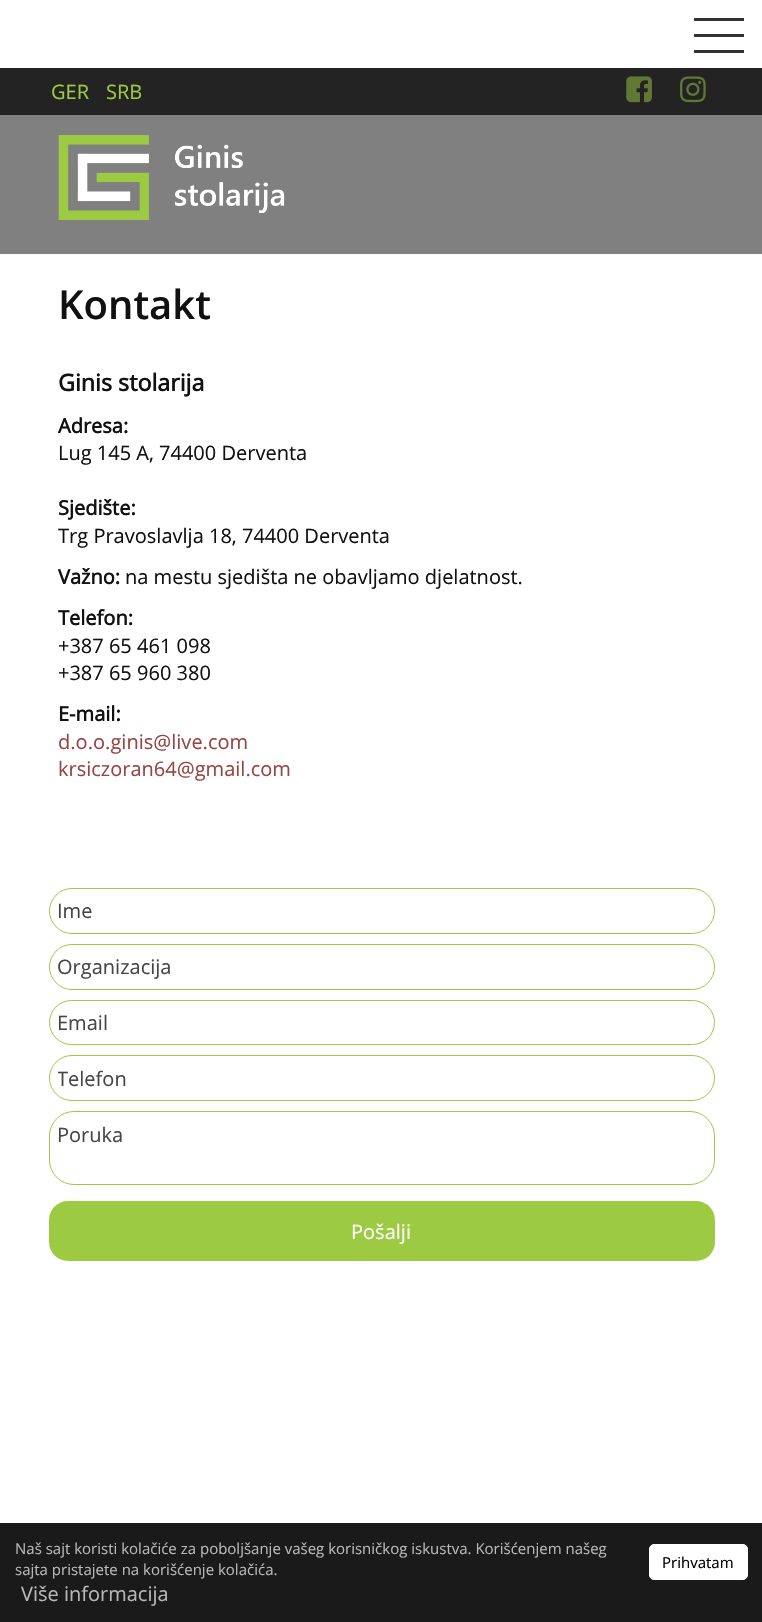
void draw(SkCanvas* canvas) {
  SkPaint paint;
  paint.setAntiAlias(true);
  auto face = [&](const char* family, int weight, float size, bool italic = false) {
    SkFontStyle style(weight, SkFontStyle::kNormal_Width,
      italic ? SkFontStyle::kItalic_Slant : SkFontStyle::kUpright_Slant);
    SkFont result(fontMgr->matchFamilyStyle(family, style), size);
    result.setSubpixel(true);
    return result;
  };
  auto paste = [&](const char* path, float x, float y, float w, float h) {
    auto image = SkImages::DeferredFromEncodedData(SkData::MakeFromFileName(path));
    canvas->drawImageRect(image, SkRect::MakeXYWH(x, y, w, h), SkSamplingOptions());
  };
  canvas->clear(0xffffffff);
  {
    const struct { float x, y, w, h; SkColor color; } items[] = {
      {0, 115, 762, 139, 0xff808080},
      {694, 18, 50, 3, 0xff333333},
      {694, 34, 50, 3, 0xff333333},
      {694, 50, 50, 3, 0xff333333},
    };
    for (auto [x, y, w, h, color] : items) {
      paint.setColor(color);
      canvas->drawRect(SkRect::MakeXYWH(x, y, w, h), paint);
    }
  }
  paste("img/1.png", 58, 135, 227, 85);
  paint.setColor(0xff232323);
  canvas->drawRect(SkRect::MakeXYWH(0, 68, 762, 47), paint);
  paste("img/2.png", 626, 76, 26, 27);
  paste("img/3.png", 680, 76, 26, 27);
  paint.setStroke(true);
  paint.setStrokeWidth(1);
  paint.setColor(0xff9dca43);
  canvas->drawRoundRect(SkRect::MakeXYWH(49.5f, 888.5f, 665, 45), 22.5f, 22.5f, paint);
  canvas->drawRoundRect(SkRect::MakeXYWH(49.5f, 944.5f, 665, 45), 22.5f, 22.5f, paint);
  canvas->drawRoundRect(SkRect::MakeXYWH(49.5f, 1000.5f, 665, 44), 22, 22, paint);
  canvas->drawRoundRect(SkRect::MakeXYWH(49.5f, 1055.5f, 665, 45), 22.5f, 22.5f, paint);
  canvas->drawRoundRect(SkRect::MakeXYWH(49.5f, 1111.5f, 665, 73), 24.5f, 24.5f, paint);
  paint.setStroke(false);
  canvas->drawRoundRect(SkRect::MakeXYWH(49, 1201, 666, 60), 19, 19, paint);
  paint.setColor(0xff1a1a1a);
  canvas->drawRect(SkRect::MakeXYWH(0, 1523, 762, 99), paint);
  paint.setColor(0xffffffff);
  canvas->drawRoundRect(SkRect::MakeXYWH(649.5f, 1544.5f, 98, 35), 4.5f, 4.5f, paint);
  paint.setStroke(true);
  canvas->drawRoundRect(SkRect::MakeXYWH(649.5f, 1544.5f, 98, 35), 4.5f, 4.5f, paint);
  auto f0 = face("Open Sans", 400, 20);
  paint.setStroke(false);
  paint.setColor(0xff9dca43);
  canvas->drawString("GER", 51, 99, f0, paint);
  canvas->drawString("SRB", 106, 99, f0, paint);
  auto f1 = face("Open Sans", 600, 40);
  paint.setColor(0xff111111);
  canvas->drawString("Kontakt", 58, 319, f1, paint);
  auto f2 = face("Open Sans", 700, 23.25f);
  canvas->drawString("Ginis stolarija", 58, 391, f2, paint);
  auto f3 = face("Open Sans", 700, 20);
  canvas->drawString("Adresa:", 58, 433, f3, paint);
  canvas->drawString("Lug 145 A, 74400 Derventa", 58, 460, f0, paint);
  canvas->drawString("Sjedište:", 58, 515, f3, paint);
  canvas->drawString("Trg Pravoslavlja 18, 74400 Derventa", 58, 543, f0, paint);
  canvas->drawString("Važno:", 58, 584, f3, paint);
  canvas->drawString("na mestu sjedišta ne obavljamo djelatnost.", 125, 584, f0, paint);
  canvas->drawString("Telefon:", 58, 625, f3, paint);
  canvas->drawString("+387 65 461 098", 58, 653, f0, paint);
  canvas->drawString("+387 65 960 380", 58, 680, f0, paint);
  canvas->drawString("E-mail:", 58, 721, f3, paint);
  paint.setColor(0xff994444);
  canvas->drawString("d.o.o.ginis@live.com", 58, 749, f0, paint);
  canvas->drawString("krsiczoran64@gmail.com", 58, 776, f0, paint);
  paint.setColor(0xff464646);
  {
    const struct { const char* s; float x, y; } items[] = {
      {"Ime", 57, 918},
      {"Organizacija", 57, 974},
      {"Email", 57, 1030},
    };
    for (auto [s, x, y] : items) {
      canvas->drawString(s, x, y, f0, paint);
    }
  }
  canvas->save();
  canvas->clipRect(SkRect::MakeXYWH(58, 1065, 647, 28));
  canvas->drawString("Telefon", 57, 1086, f0, paint);
  canvas->restore();
  canvas->drawString("Poruka", 57, 1142, f0, paint);
  paint.setColor(0xffffffff);
  canvas->drawString("Pošalji", 351, 1239, f0, paint);
  auto f4 = face("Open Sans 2", 400, 15);
  paint.setColor(0xffb8b8b8);
  canvas->drawString("Naš sajt koristi kolačiće za poboljšanje vašeg korisničkog iskustva. Korišćenjem našeg", 15, 1554, f4, paint);
  canvas->drawString("sajta pristajete na korišćenje kolačića.", 15, 1575, f4, paint);
  paint.setColor(0xff000000);
  canvas->drawString("Prihvatam", 662, 1568, f4, paint);
  auto f5 = face("Open Sans 2", 400, 20);
  paint.setColor(0xffb8b8b8);
  canvas->drawString("Više informacija", 21, 1601, f5, paint);
}
